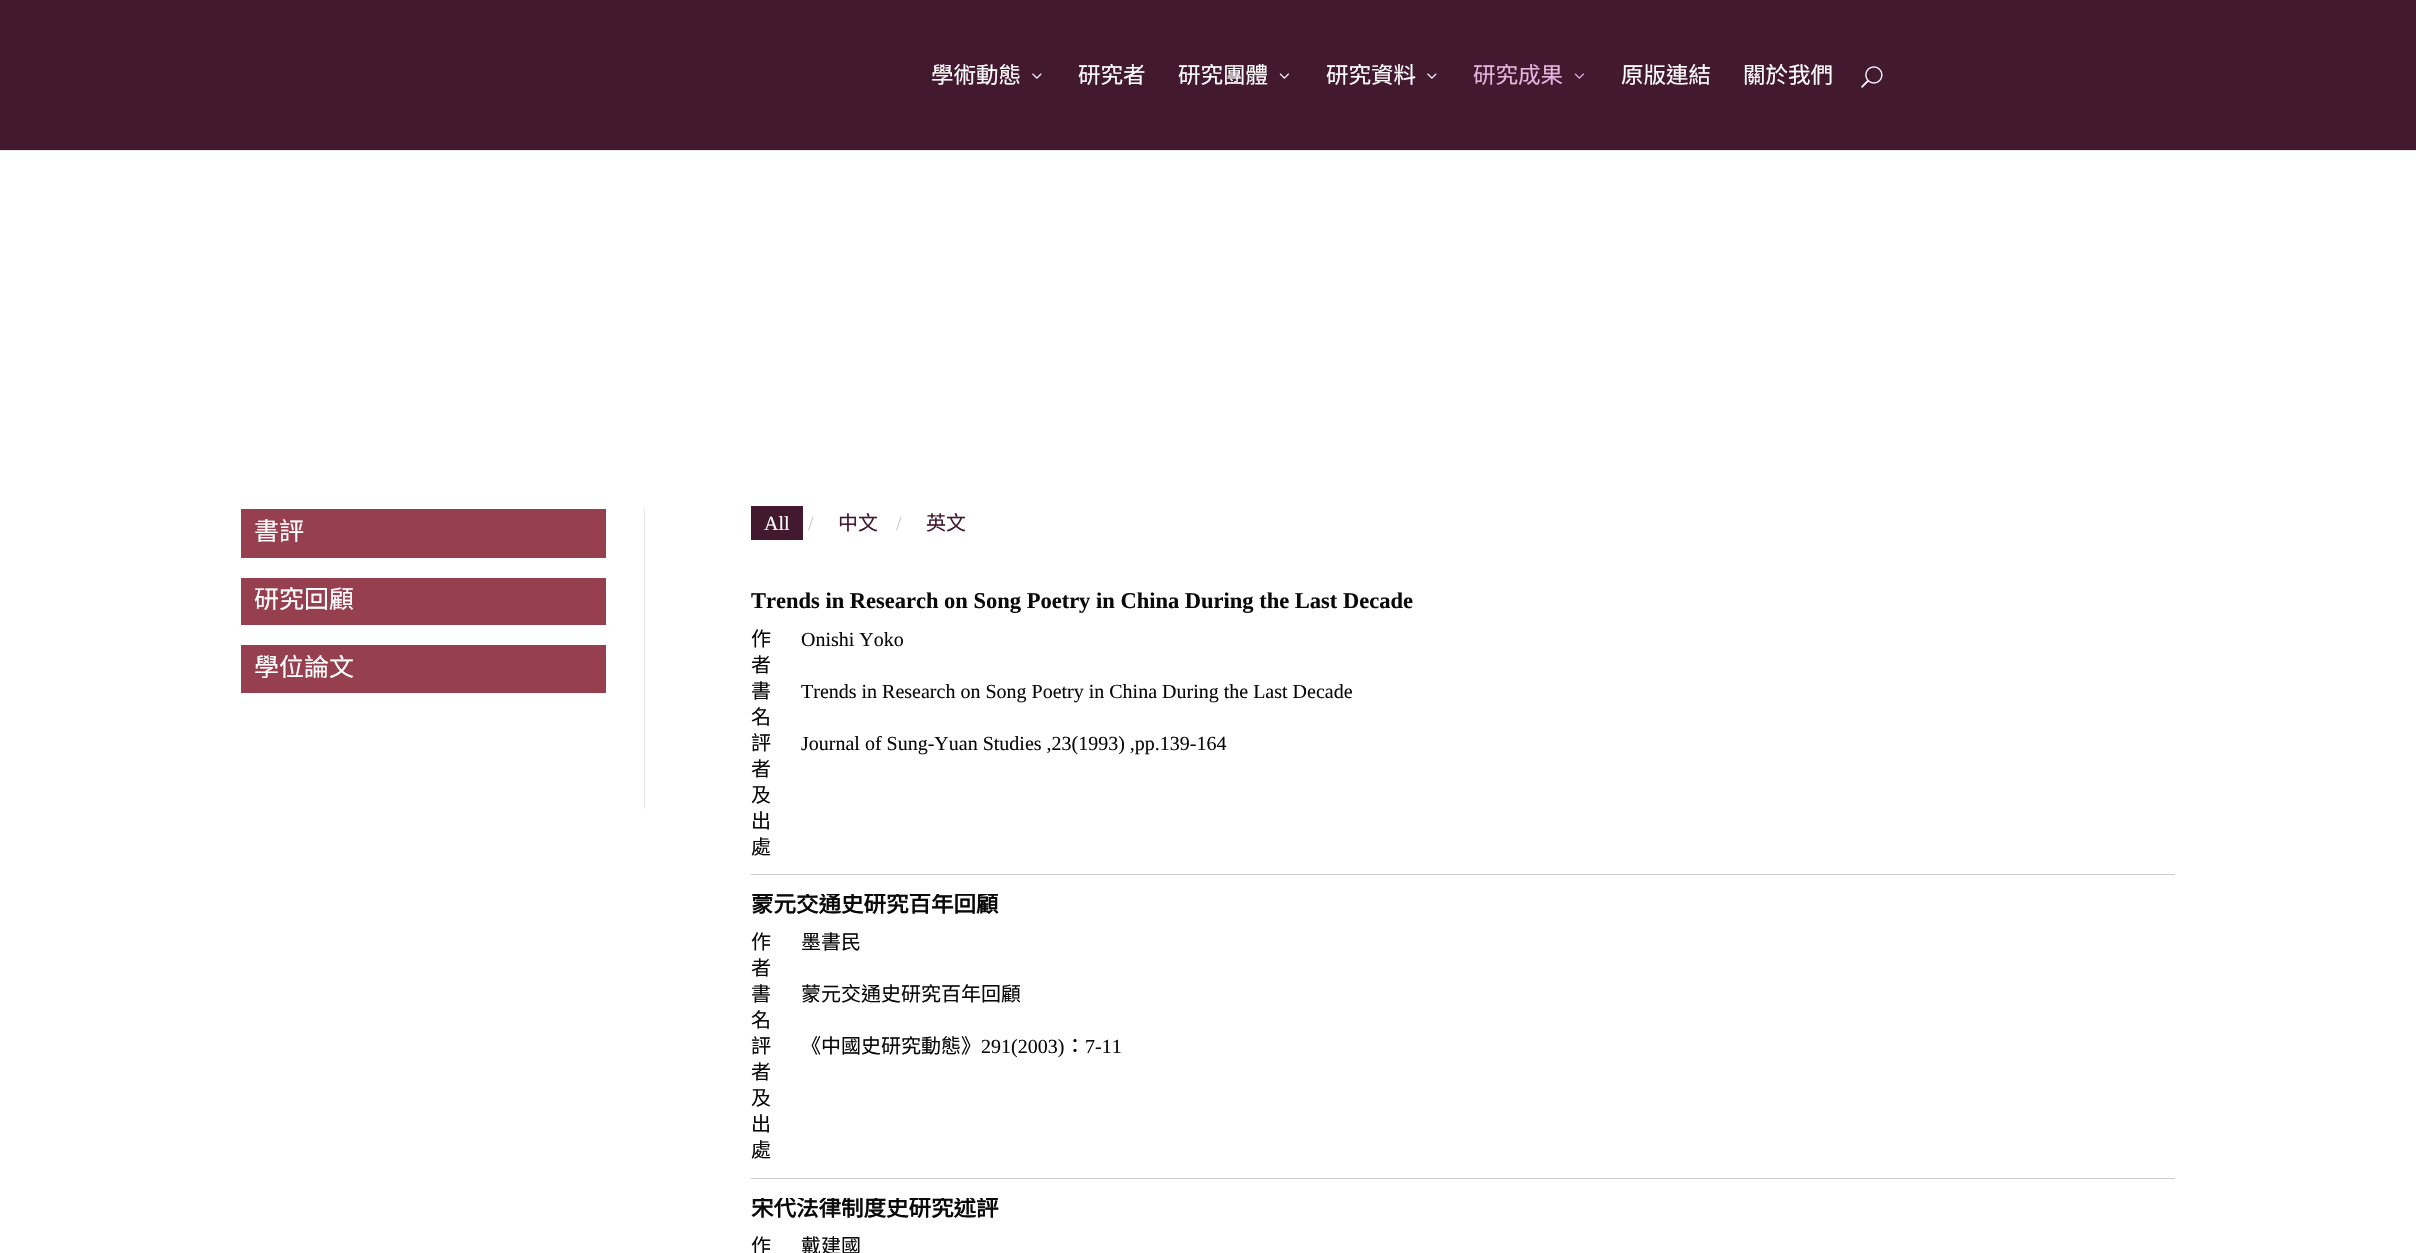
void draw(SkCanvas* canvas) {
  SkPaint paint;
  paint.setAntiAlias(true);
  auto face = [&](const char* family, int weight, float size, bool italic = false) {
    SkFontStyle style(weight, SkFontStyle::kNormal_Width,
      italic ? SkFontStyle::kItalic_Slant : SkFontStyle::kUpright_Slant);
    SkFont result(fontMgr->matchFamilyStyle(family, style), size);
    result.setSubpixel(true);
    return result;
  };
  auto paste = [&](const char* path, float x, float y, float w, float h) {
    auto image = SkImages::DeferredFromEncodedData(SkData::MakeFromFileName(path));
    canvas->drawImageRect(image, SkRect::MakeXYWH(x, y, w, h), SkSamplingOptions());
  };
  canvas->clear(0xffffffff);
  paint.setColor(0xffe6e6e6);
  canvas->drawRect(SkRect::MakeXYWH(0, 150, 2416, 1), paint);
  paint.setColor(0xff42192f);
  canvas->drawRect(SkRect::MakeXYWH(0, 0, 2416, 150), paint);
  paste("img/1.png", 1032, 73, 10, 6);
  paste("img/2.png", 1279, 73, 10, 6);
  paste("img/1.png", 1427, 73, 10, 6);
  paste("img/3.png", 1574, 73, 10, 6);
  paste("img/4.png", 1861, 66, 22, 22);
  {
    const struct { float x, y, w, h; SkColor color; } items[] = {
      {644, 509, 1, 300, 0xffe6e6e6},
      {241, 509, 365, 49, 0xff953f4f},
      {241, 578, 365, 47, 0xff953f4f},
      {241, 645, 365, 48, 0xff953f4f},
      {751, 506, 52, 34, 0xff42192f},
      {751, 874, 1424, 1, 0xffcccccc},
      {751, 1178, 1424, 1, 0xffcccccc},
    };
    for (auto [x, y, w, h, color] : items) {
      paint.setColor(color);
      canvas->drawRect(SkRect::MakeXYWH(x, y, w, h), paint);
    }
  }
  auto f0 = face("Noto Sans CJK TC", 400, 22.5f);
  paint.setColor(0xffffffff);
  {
    const struct { const char* s; float x, y; } items[] = {
      {"學術動態", 931, 83},
      {"研究者", 1078, 83},
      {"研究團體", 1178, 83},
      {"研究資料", 1326, 83},
    };
    for (auto [s, x, y] : items) {
      canvas->drawString(s, x, y, f0, paint);
    }
  }
  paint.setColor(0xffe2b5de);
  canvas->drawString("研究成果", 1473, 83, f0, paint);
  paint.setColor(0xffffffff);
  canvas->drawString("原版連結", 1621, 83, f0, paint);
  canvas->drawString("關於我們", 1743, 83, f0, paint);
  auto f1 = face("Noto Sans CJK TC", 400, 25);
  {
    const struct { const char* s; float x, y; } items[] = {
      {"書評", 254, 540},
      {"研究回顧", 254, 608},
      {"學位論文", 254, 676},
    };
    for (auto [s, x, y] : items) {
      canvas->drawString(s, x, y, f1, paint);
    }
  }
  auto f2 = face("Liberation Serif", 400, 20);
  canvas->drawString("All", 764, 530, f2, paint);
  paint.setColor(0xffcccccc);
  canvas->drawString("/", 808, 530, f2, paint);
  auto f3 = face("Noto Sans CJK TC", 400, 20);
  paint.setColor(0xff42192f);
  canvas->drawString("中文", 838, 530, f3, paint);
  paint.setColor(0xffcccccc);
  canvas->drawString("/", 896, 530, f2, paint);
  paint.setColor(0xff42192f);
  canvas->drawString("英文", 926, 530, f3, paint);
  auto f4 = face("Liberation Serif", 700, 22.5f);
  paint.setColor(0xff0a0a0a);
  canvas->drawString("Trends in Research on Song Poetry in China During the Last Decade", 751, 608, f4, paint);
  canvas->drawString("作", 751, 646, f3, paint);
  canvas->drawString("者", 751, 672, f3, paint);
  canvas->drawString("Onishi Yoko", 801, 646, f2, paint);
  canvas->drawString("書", 751, 698, f3, paint);
  canvas->drawString("名", 751, 724, f3, paint);
  canvas->drawString("Trends in Research on Song Poetry in China During the Last Decade", 801, 698, f2, paint);
  {
    const struct { const char* s; float x, y; } items[] = {
      {"評", 751, 750},
      {"者", 751, 776},
      {"及", 751, 802},
      {"出", 751, 828},
      {"處", 751, 854},
    };
    for (auto [s, x, y] : items) {
      canvas->drawString(s, x, y, f3, paint);
    }
  }
  canvas->drawString("Journal of Sung-Yuan Studies ,23(1993) ,pp.139-164", 801, 750, f2, paint);
  canvas->save();
  canvas->clipRect(SkRect::MakeXYWH(751, 894, 1424, 284));
  auto f5 = face("Noto Sans CJK TC", 700, 22.5f);
  canvas->drawString("蒙元交通史研究百年回顧", 751, 912, f5, paint);
  canvas->restore();
  {
    const struct { const char* s; float x, y; } items[] = {
      {"作", 751, 949},
      {"者", 751, 975},
      {"墨書民", 801, 949},
      {"書", 751, 1001},
      {"名", 751, 1027},
      {"蒙元交通史研究百年回顧", 801, 1001},
      {"評", 751, 1053},
      {"者", 751, 1079},
      {"及", 751, 1105},
      {"出", 751, 1131},
      {"處", 751, 1157},
      {"《中國史研究動態》", 801, 1053},
    };
    for (auto [s, x, y] : items) {
      canvas->drawString(s, x, y, f3, paint);
    }
  }
  canvas->drawString("291(2003)", 981, 1053, f2, paint);
  canvas->drawString("：", 1065, 1053, f3, paint);
  canvas->drawString("7-11", 1085, 1053, f2, paint);
  canvas->save();
  canvas->clipRect(SkRect::MakeXYWH(751, 1198, 1424, 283));
  canvas->drawString("宋代法律制度史研究述評", 751, 1216, f5, paint);
  canvas->restore();
  canvas->drawString("作", 751, 1253, f3, paint);
  canvas->drawString("戴建國", 801, 1253, f3, paint);
}
